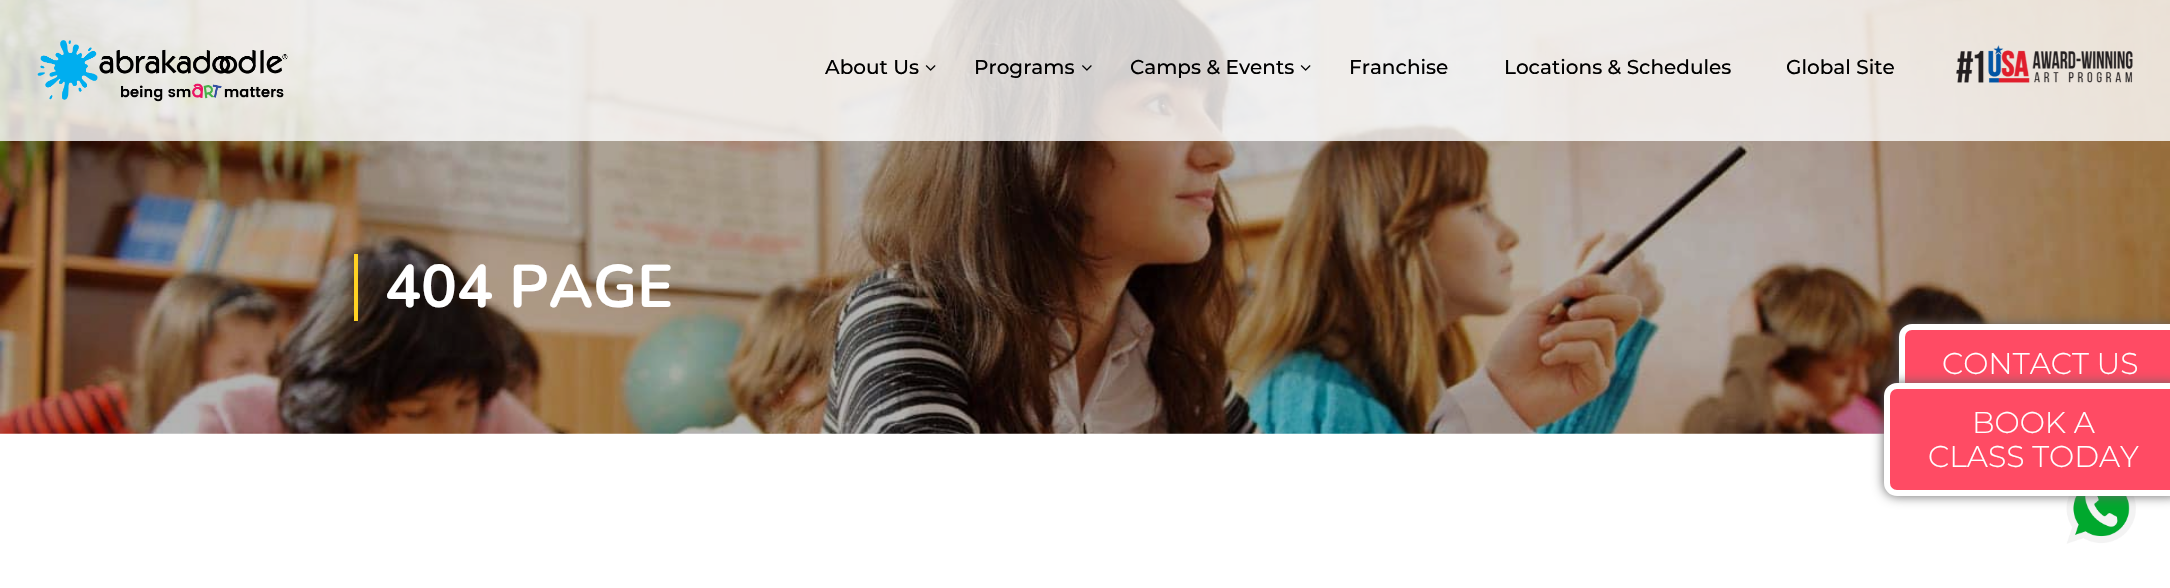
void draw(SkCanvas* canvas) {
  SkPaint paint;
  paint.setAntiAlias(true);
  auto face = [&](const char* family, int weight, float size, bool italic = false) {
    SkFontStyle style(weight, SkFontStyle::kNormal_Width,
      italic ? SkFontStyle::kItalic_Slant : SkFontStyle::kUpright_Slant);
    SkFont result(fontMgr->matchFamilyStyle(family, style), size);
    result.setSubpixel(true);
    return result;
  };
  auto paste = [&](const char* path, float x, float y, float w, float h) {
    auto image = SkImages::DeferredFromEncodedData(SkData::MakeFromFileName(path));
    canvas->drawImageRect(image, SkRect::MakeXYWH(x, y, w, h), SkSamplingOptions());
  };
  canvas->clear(0xffffffff);
  paste("img/6.png", 0, 0, 2170, 434);
  paint.setColor(0xccffffff);
  canvas->drawRect(SkRect::MakeXYWH(0, 0, 2170, 141), paint);
  paste("img/1.png", 37, 40, 251, 62);
  paste("img/2.png", 925, 65, 11, 6);
  paste("img/3.png", 1082, 65, 10, 6);
  paste("img/4.png", 1300, 65, 11, 6);
  paste("img/5.png", 1956, 45, 177, 38);
  paint.setColor(0xffffd223);
  canvas->drawRect(SkRect::MakeXYWH(354, 254, 4, 67), paint);
  paint.setColor(0xff666666);
  paint.setMaskFilter(SkMaskFilter::MakeBlur(kNormal_SkBlurStyle, 6));
  canvas->drawRoundRect(SkRect::MakeXYWH(1899, 324, 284, 79), 13, 13, paint);
  paint.setMaskFilter(nullptr);
  paint.setColor(0xffff4b64);
  canvas->drawRoundRect(SkRect::MakeXYWH(1902, 327, 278, 73), 10, 10, paint);
  paint.setStroke(true);
  paint.setStrokeWidth(6);
  paint.setColor(0xffffffff);
  canvas->drawRoundRect(SkRect::MakeXYWH(1902, 327, 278, 73), 10, 10, paint);
  paste("img/7.png", 2066, 496, 70, 48);
  paint.setStroke(false);
  paint.setColor(0xff666666);
  paint.setMaskFilter(SkMaskFilter::MakeBlur(kNormal_SkBlurStyle, 6));
  canvas->drawRoundRect(SkRect::MakeXYWH(1884, 383, 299, 113), 13, 13, paint);
  paint.setMaskFilter(nullptr);
  paint.setColor(0xffff4b64);
  canvas->drawRoundRect(SkRect::MakeXYWH(1887, 386, 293, 107), 10, 10, paint);
  paint.setStroke(true);
  paint.setColor(0xffffffff);
  canvas->drawRoundRect(SkRect::MakeXYWH(1887, 386, 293, 107), 10, 10, paint);
  auto f0 = face("Montserrat", 500, 20);
  paint.setStroke(false);
  paint.setColor(0xff000000);
  {
    const struct { const char* s; float x, y; } items[] = {
      {"About Us", 825, 74},
      {"Programs", 974, 74},
      {"Camps & Events", 1130, 74},
      {"Franchise", 1349, 74},
      {"Locations & Schedules", 1504, 74},
      {"Global Site", 1786, 74},
    };
    for (auto [s, x, y] : items) {
      canvas->drawString(s, x, y, f0, paint);
    }
  }
  auto f1 = face("Nunito", 700, 60);
  paint.setColor(0xffffffff);
  canvas->drawString("404 PAGE", 385, 307, f1, paint);
  auto f2 = face("Montserrat", 300, 30);
  {
    const struct { const char* s; float x, y; } items[] = {
      {"CONTACT US", 1942, 374},
      {"BOOK A", 1972, 433},
      {"CLASS TODAY", 1928, 467},
    };
    for (auto [s, x, y] : items) {
      canvas->drawString(s, x, y, f2, paint);
    }
  }
}
